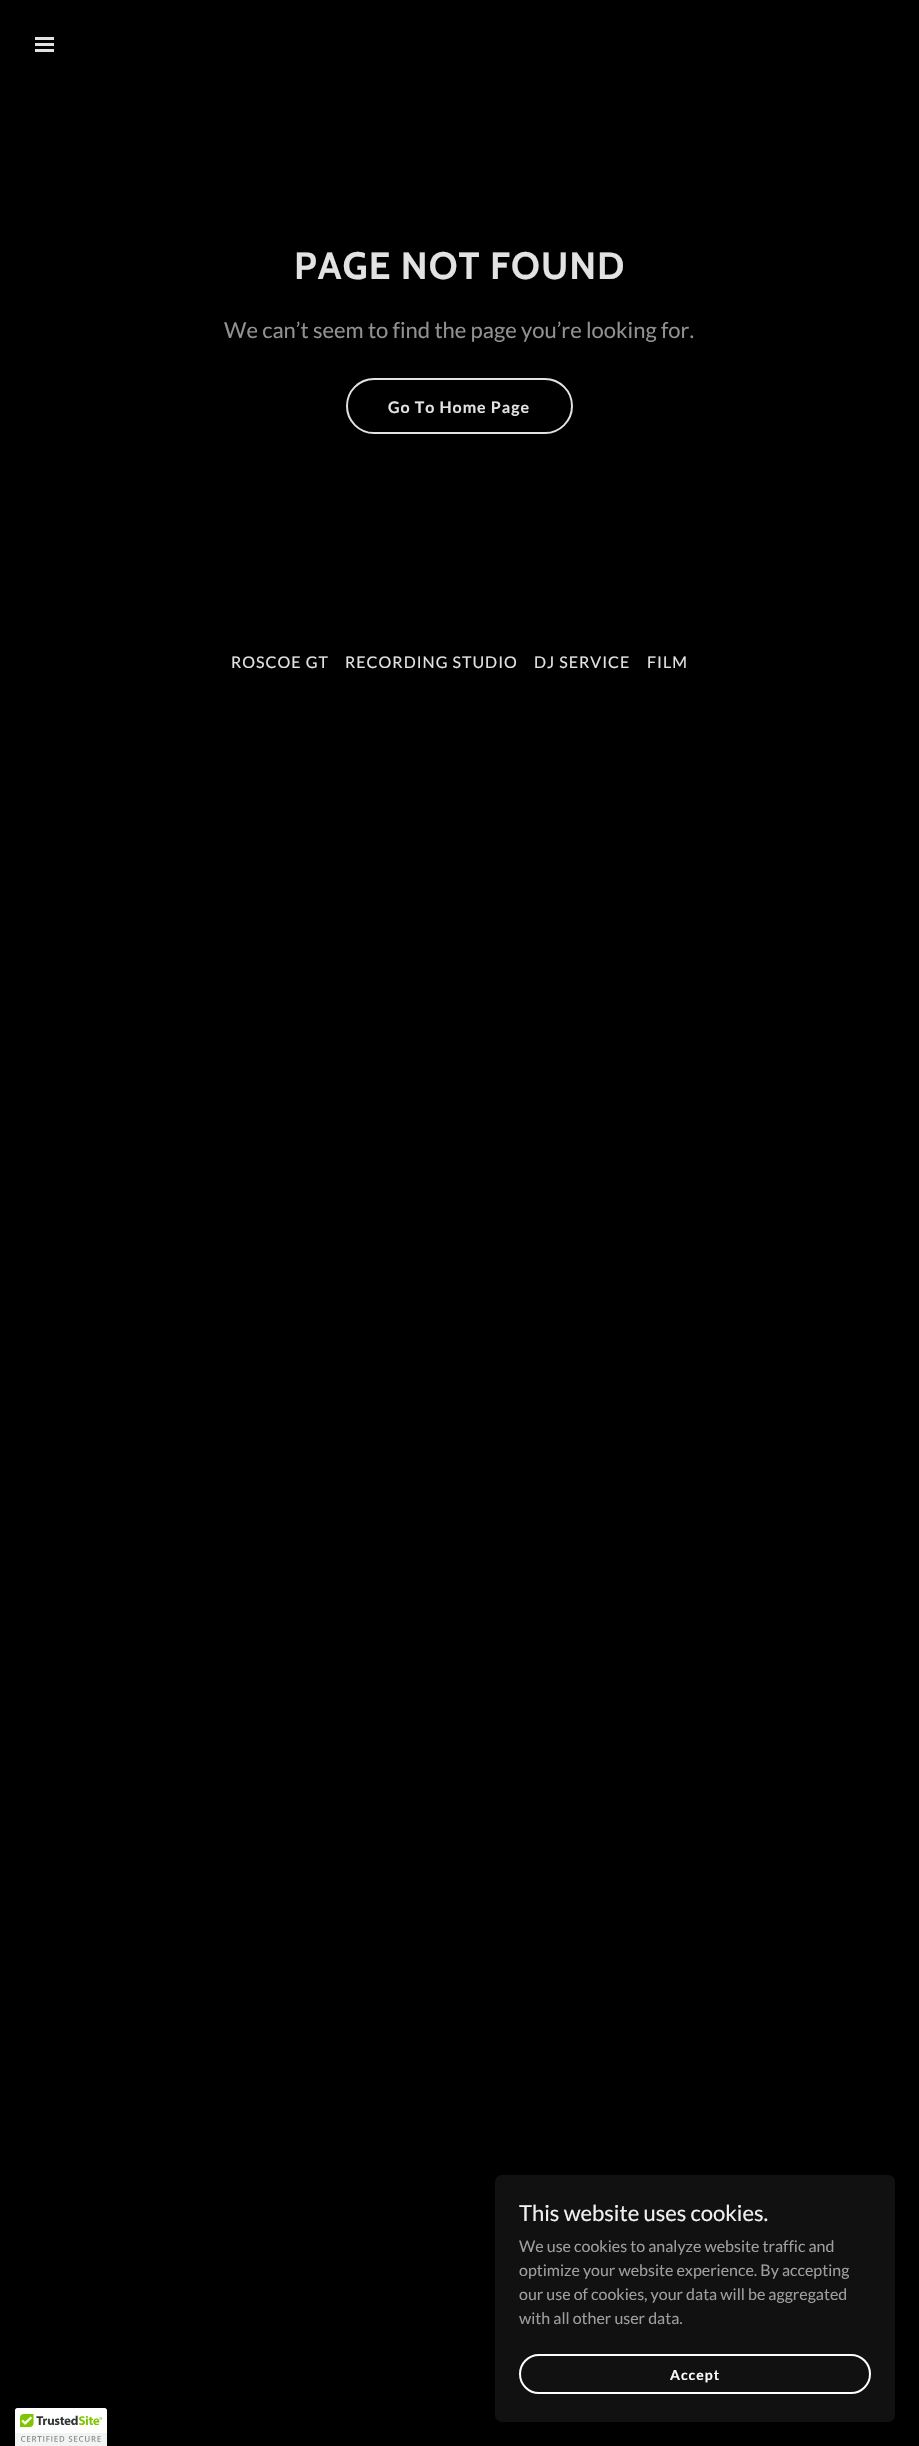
void draw(SkCanvas* canvas) {
  SkPaint paint;
  paint.setAntiAlias(true);
  auto face = [&](const char* family, int weight, float size, bool italic = false) {
    SkFontStyle style(weight, SkFontStyle::kNormal_Width,
      italic ? SkFontStyle::kItalic_Slant : SkFontStyle::kUpright_Slant);
    SkFont result(fontMgr->matchFamilyStyle(family, style), size);
    result.setSubpixel(true);
    return result;
  };
  auto writeSpaced = [&](const char* s, float x, float y, const SkFont& font, const SkPaint& ink, float letter, float word) {
    std::vector<SkGlyphID> glyphs(font.countText(s, strlen(s), SkTextEncoding::kUTF8));
    std::vector<float> xs(glyphs.size());
    font.textToGlyphs(s, strlen(s), SkTextEncoding::kUTF8, glyphs);
    font.getXPos(glyphs, xs, x);
    float extra = 0;
    for (size_t i = 0; i < glyphs.size(); i++) {
      xs[i] += extra;
      extra += letter + word * (glyphs[i] == font.unicharToGlyph(' '));
    }
    canvas->drawTextBlob(SkTextBlob::MakeFromPosHGlyphs(glyphs, xs, y, font), 0, 0, ink);
  };
  auto paste = [&](const char* path, float x, float y, float w, float h) {
    auto image = SkImages::DeferredFromEncodedData(SkData::MakeFromFileName(path));
    canvas->drawImageRect(image, SkRect::MakeXYWH(x, y, w, h), SkSamplingOptions());
  };
  canvas->clear(0xff000000);
  {
    const struct { float x, y, w, h; SkColor color; } items[] = {
      {35, 37, 19, 3, 0xffe2e2e2},
      {35, 43, 19, 3, 0xffe2e2e2},
      {35, 49, 19, 3, 0xffe2e2e2},
    };
    for (auto [x, y, w, h, color] : items) {
      paint.setColor(color);
      canvas->drawRect(SkRect::MakeXYWH(x, y, w, h), paint);
    }
  }
  paint.setStroke(true);
  paint.setStrokeWidth(2);
  canvas->drawRoundRect(SkRect::MakeXYWH(347, 379, 225, 54), 27, 27, paint);
  paint.setStroke(false);
  paint.setColor(0xff111111);
  canvas->drawRoundRect(SkRect::MakeXYWH(495, 2175, 400, 247), 7, 7, paint);
  paint.setStroke(true);
  paint.setColor(0xffffffff);
  canvas->drawRoundRect(SkRect::MakeXYWH(520, 2355, 350, 38), 19, 19, paint);
  paste("img/1.png", 15, 2408, 92, 38);
  auto f0 = face("Cabin", 700, 38);
  paint.setStroke(false);
  paint.setColor(0xffe2e2e2);
  writeSpaced("PAGE NOT FOUND", 294, 279, f0, paint, 1, 0);
  auto f1 = face("Lato", 400, 22);
  paint.setColor(0xff919191);
  canvas->drawString("We can’t seem to find the page you’re looking for.", 224, 338, f1, paint);
  auto f2 = face("Lato", 700, 16);
  paint.setColor(0xffe2e2e2);
  writeSpaced("Go To Home Page", 388, 413, f2, paint, 1, 0);
  auto f3 = face("Lato", 400, 16);
  {
    const struct { const char* s; float x, y; } items[] = {
      {"ROSCOE GT", 231, 668},
      {"RECORDING STUDIO", 345, 668},
      {"DJ SERVICE", 534, 668},
      {"FILM", 647, 668},
    };
    for (auto [s, x, y] : items) {
      writeSpaced(s, x, y, f3, paint, 1, 0);
    }
  }
  paint.setColor(0xfff1f1f1);
  canvas->drawString("This website uses cookies.", 519, 2221, f1, paint);
  paint.setColor(0xff9e9e9e);
  {
    const struct { const char* s; float x, y; } items[] = {
      {"We use cookies to analyze website traffic and", 519, 2252},
      {"optimize your website experience. By accepting", 519, 2276},
      {"our use of cookies, your data will be aggregated", 519, 2300},
      {"with all other user data.", 519, 2324},
    };
    for (auto [s, x, y] : items) {
      canvas->drawString(s, x, y, f3, paint);
    }
  }
  auto f4 = face("Lato", 700, 14);
  paint.setColor(0xffffffff);
  writeSpaced("Accept", 670, 2380, f4, paint, 1, 0);
}
